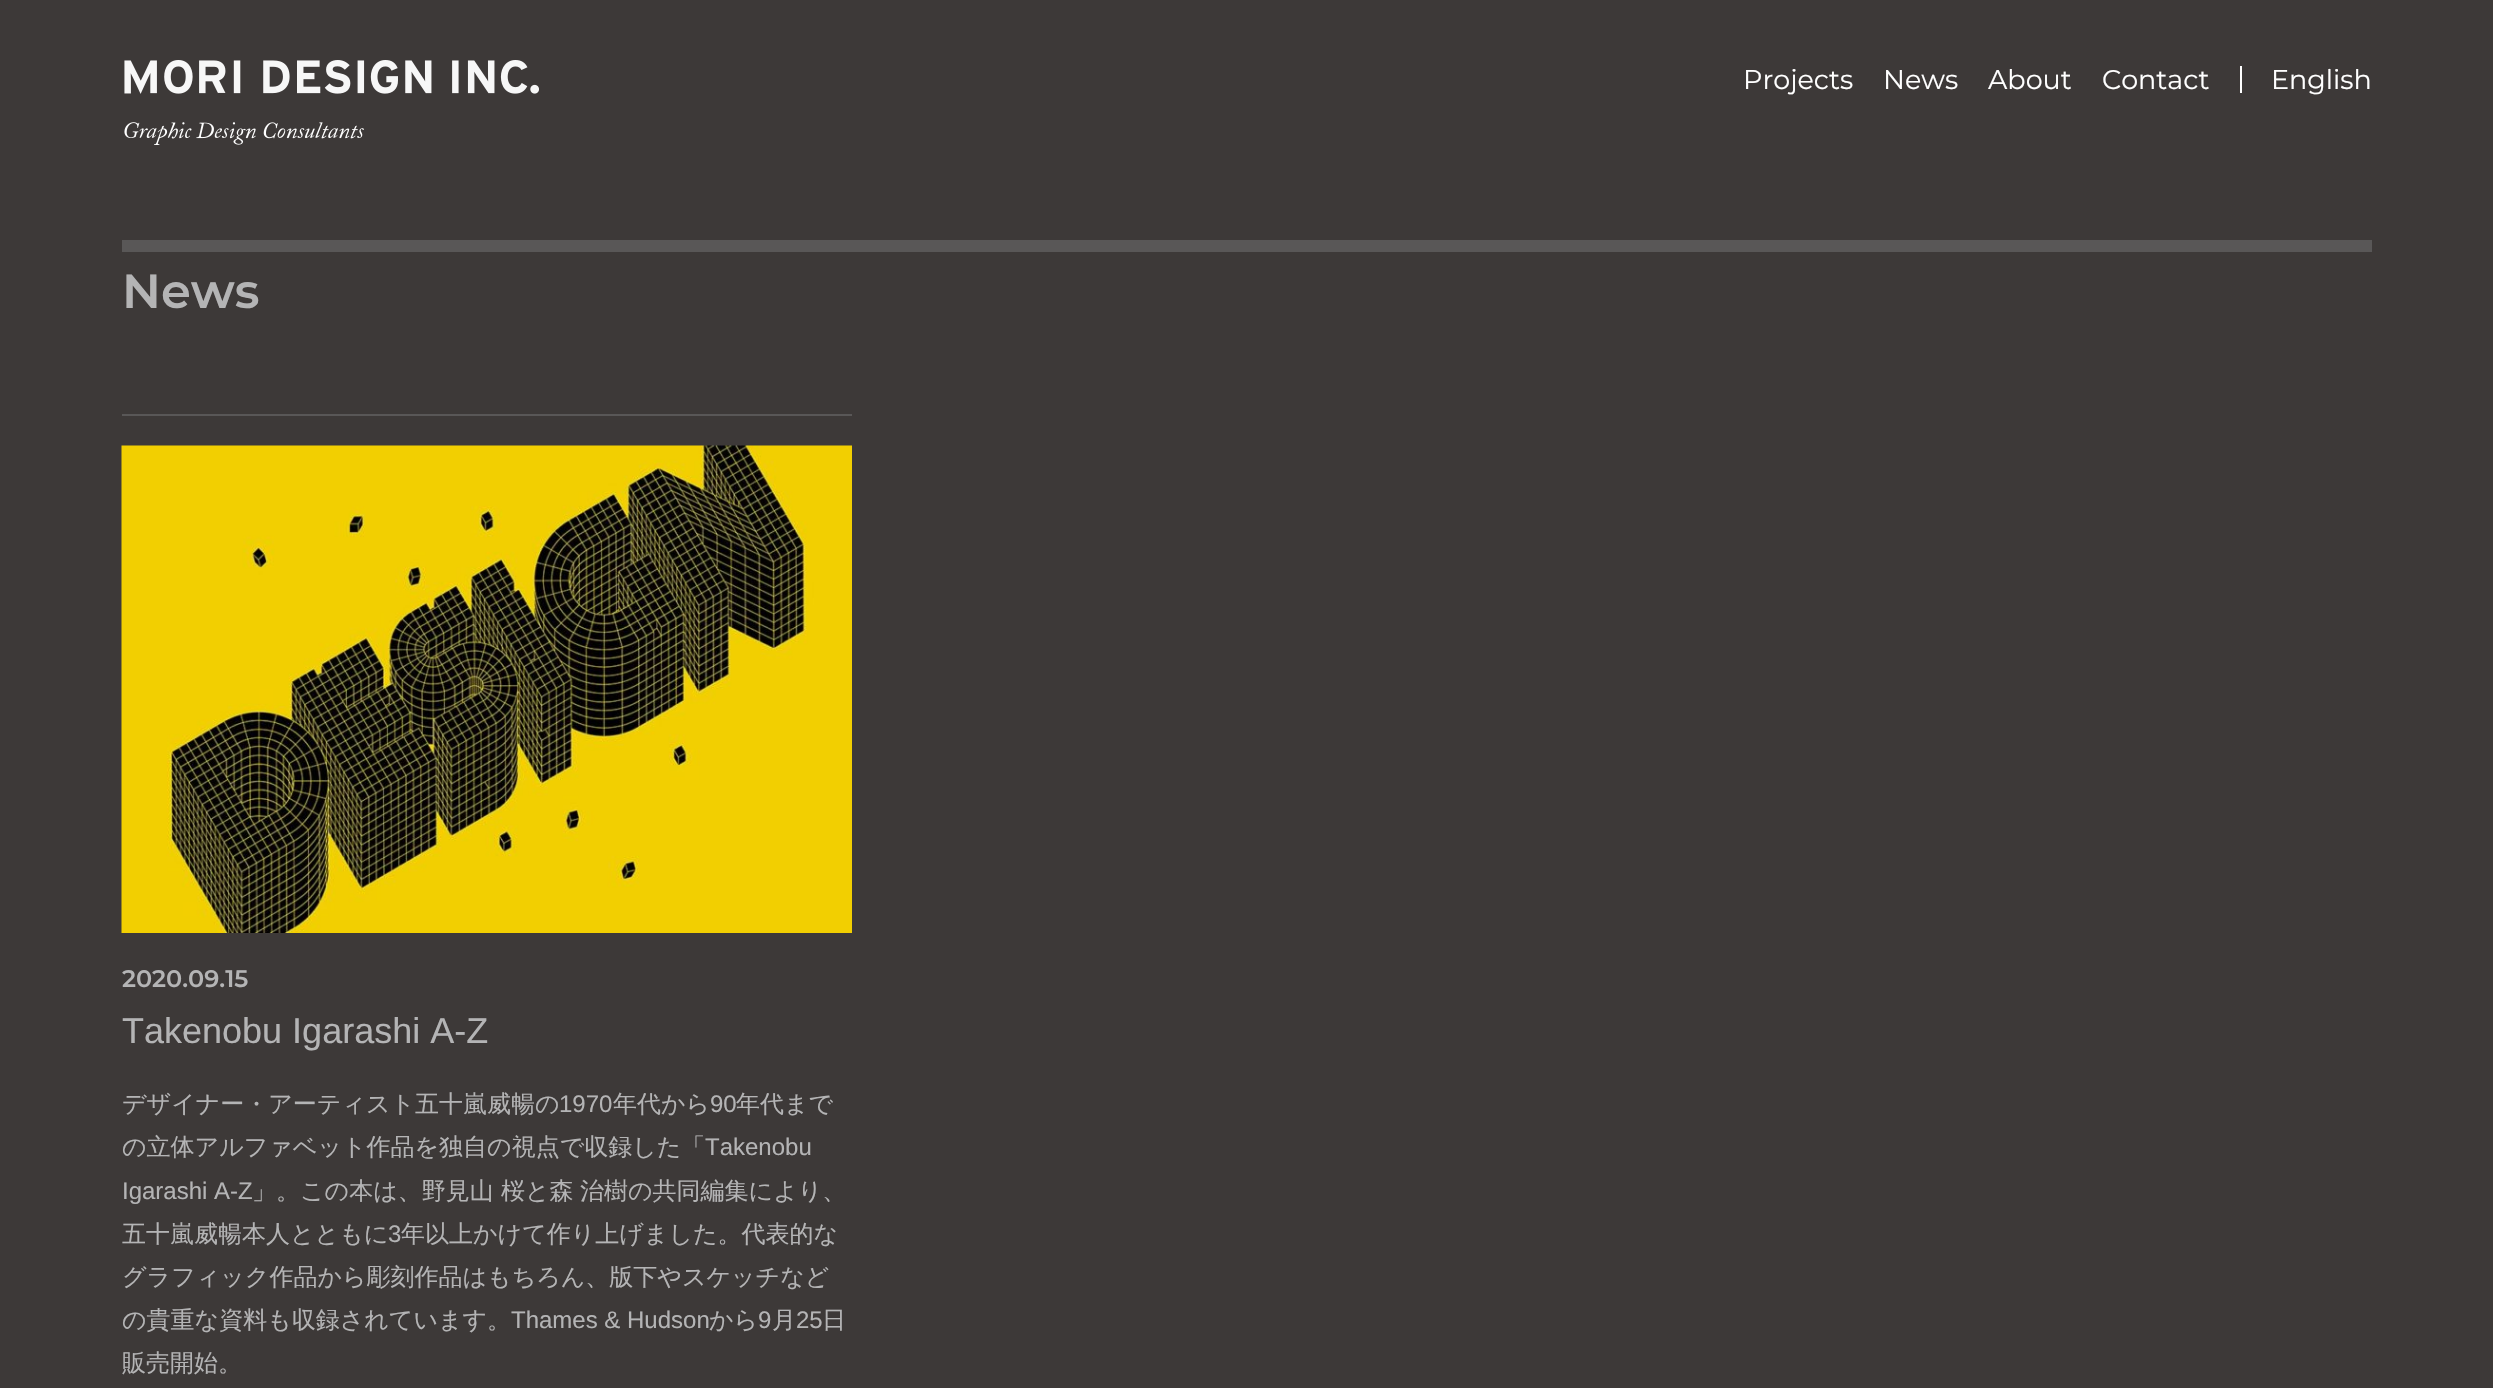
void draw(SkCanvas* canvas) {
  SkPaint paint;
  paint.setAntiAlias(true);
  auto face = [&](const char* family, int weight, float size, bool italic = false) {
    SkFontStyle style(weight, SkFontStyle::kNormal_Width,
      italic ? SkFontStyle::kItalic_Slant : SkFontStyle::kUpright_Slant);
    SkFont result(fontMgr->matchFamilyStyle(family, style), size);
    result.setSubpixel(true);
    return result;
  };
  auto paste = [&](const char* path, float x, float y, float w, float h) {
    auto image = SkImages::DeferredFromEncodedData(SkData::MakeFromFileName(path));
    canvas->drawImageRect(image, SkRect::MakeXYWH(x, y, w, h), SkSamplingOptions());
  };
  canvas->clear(0xff3d3938);
  paste("img/1.png", 124, 60, 415, 85);
  {
    const struct { float x, y, w, h; SkColor color; } items[] = {
      {2240, 66, 2, 27, 0xffffffff},
      {122, 240, 2250, 12, 0xff595757},
      {122, 414, 730, 2, 0xff595757},
    };
    for (auto [x, y, w, h, color] : items) {
      paint.setColor(color);
      canvas->drawRect(SkRect::MakeXYWH(x, y, w, h), paint);
    }
  }
  paste("img/2.png", 121, 445, 731, 488);
  auto f0 = face("Montserrat", 400, 27);
  paint.setColor(0xffffffff);
  {
    const struct { const char* s; float x, y; } items[] = {
      {"Projects", 1743, 89},
      {"News", 1883, 89},
      {"About", 1988, 89},
      {"Contact", 2102, 89},
      {"English", 2271, 89},
    };
    for (auto [s, x, y] : items) {
      canvas->drawString(s, x, y, f0, paint);
    }
  }
  auto f1 = face("Montserrat", 600, 48);
  paint.setColor(0xffb4b4b5);
  canvas->drawString("News", 122, 308, f1, paint);
  auto f2 = face("Montserrat", 600, 24);
  canvas->drawString("2020.09.15", 122, 987, f2, paint);
  auto f3 = face("Liberation Sans", 400, 36);
  canvas->drawString("Takenobu Igarashi A-Z", 122, 1043, f3, paint);
  auto f4 = face("WenQuanYi Zen Hei", 500, 24);
  canvas->drawString("デザイナー・アーティスト五十嵐威暢の", 122, 1112, f4, paint);
  auto f5 = face("Liberation Sans", 400, 24);
  canvas->drawString("1970", 559, 1112, f5, paint);
  canvas->drawString("年代から", 613, 1112, f4, paint);
  canvas->drawString("90", 710, 1112, f5, paint);
  canvas->drawString("年代まで", 736, 1112, f4, paint);
  canvas->drawString("の立体アルファベット作品を独自の視点で収録した「", 122, 1155, f4, paint);
  canvas->drawString("Takenobu", 705, 1155, f5, paint);
  canvas->drawString("Igarashi A-Z", 122, 1199, f5, paint);
  {
    const struct { const char* s; float x, y; } items[] = {
      {"」。この本は、野見山", 252, 1199},
      {"桜と森", 501, 1199},
      {"治樹の共同編集により、", 580, 1199},
      {"五十嵐威暢本人とともに", 122, 1242},
    };
    for (auto [s, x, y] : items) {
      canvas->drawString(s, x, y, f4, paint);
    }
  }
  canvas->drawString("3", 388, 1242, f5, paint);
  {
    const struct { const char* s; float x, y; } items[] = {
      {"年以上かけて作り上げました。代表的な", 401, 1242},
      {"グラフィック作品から彫刻作品はもちろん、版下やスケッチなど", 122, 1285},
      {"の貴重な資料も収録されています。", 122, 1328},
    };
    for (auto [s, x, y] : items) {
      canvas->drawString(s, x, y, f4, paint);
    }
  }
  canvas->drawString("Thames & Hudson", 511, 1328, f5, paint);
  canvas->drawString("から", 709, 1328, f4, paint);
  canvas->drawString("9", 758, 1328, f5, paint);
  canvas->drawString("月", 772, 1328, f4, paint);
  canvas->drawString("25", 796, 1328, f5, paint);
  canvas->drawString("日", 822, 1328, f4, paint);
  canvas->drawString("販売開始。", 122, 1371, f4, paint);
}
